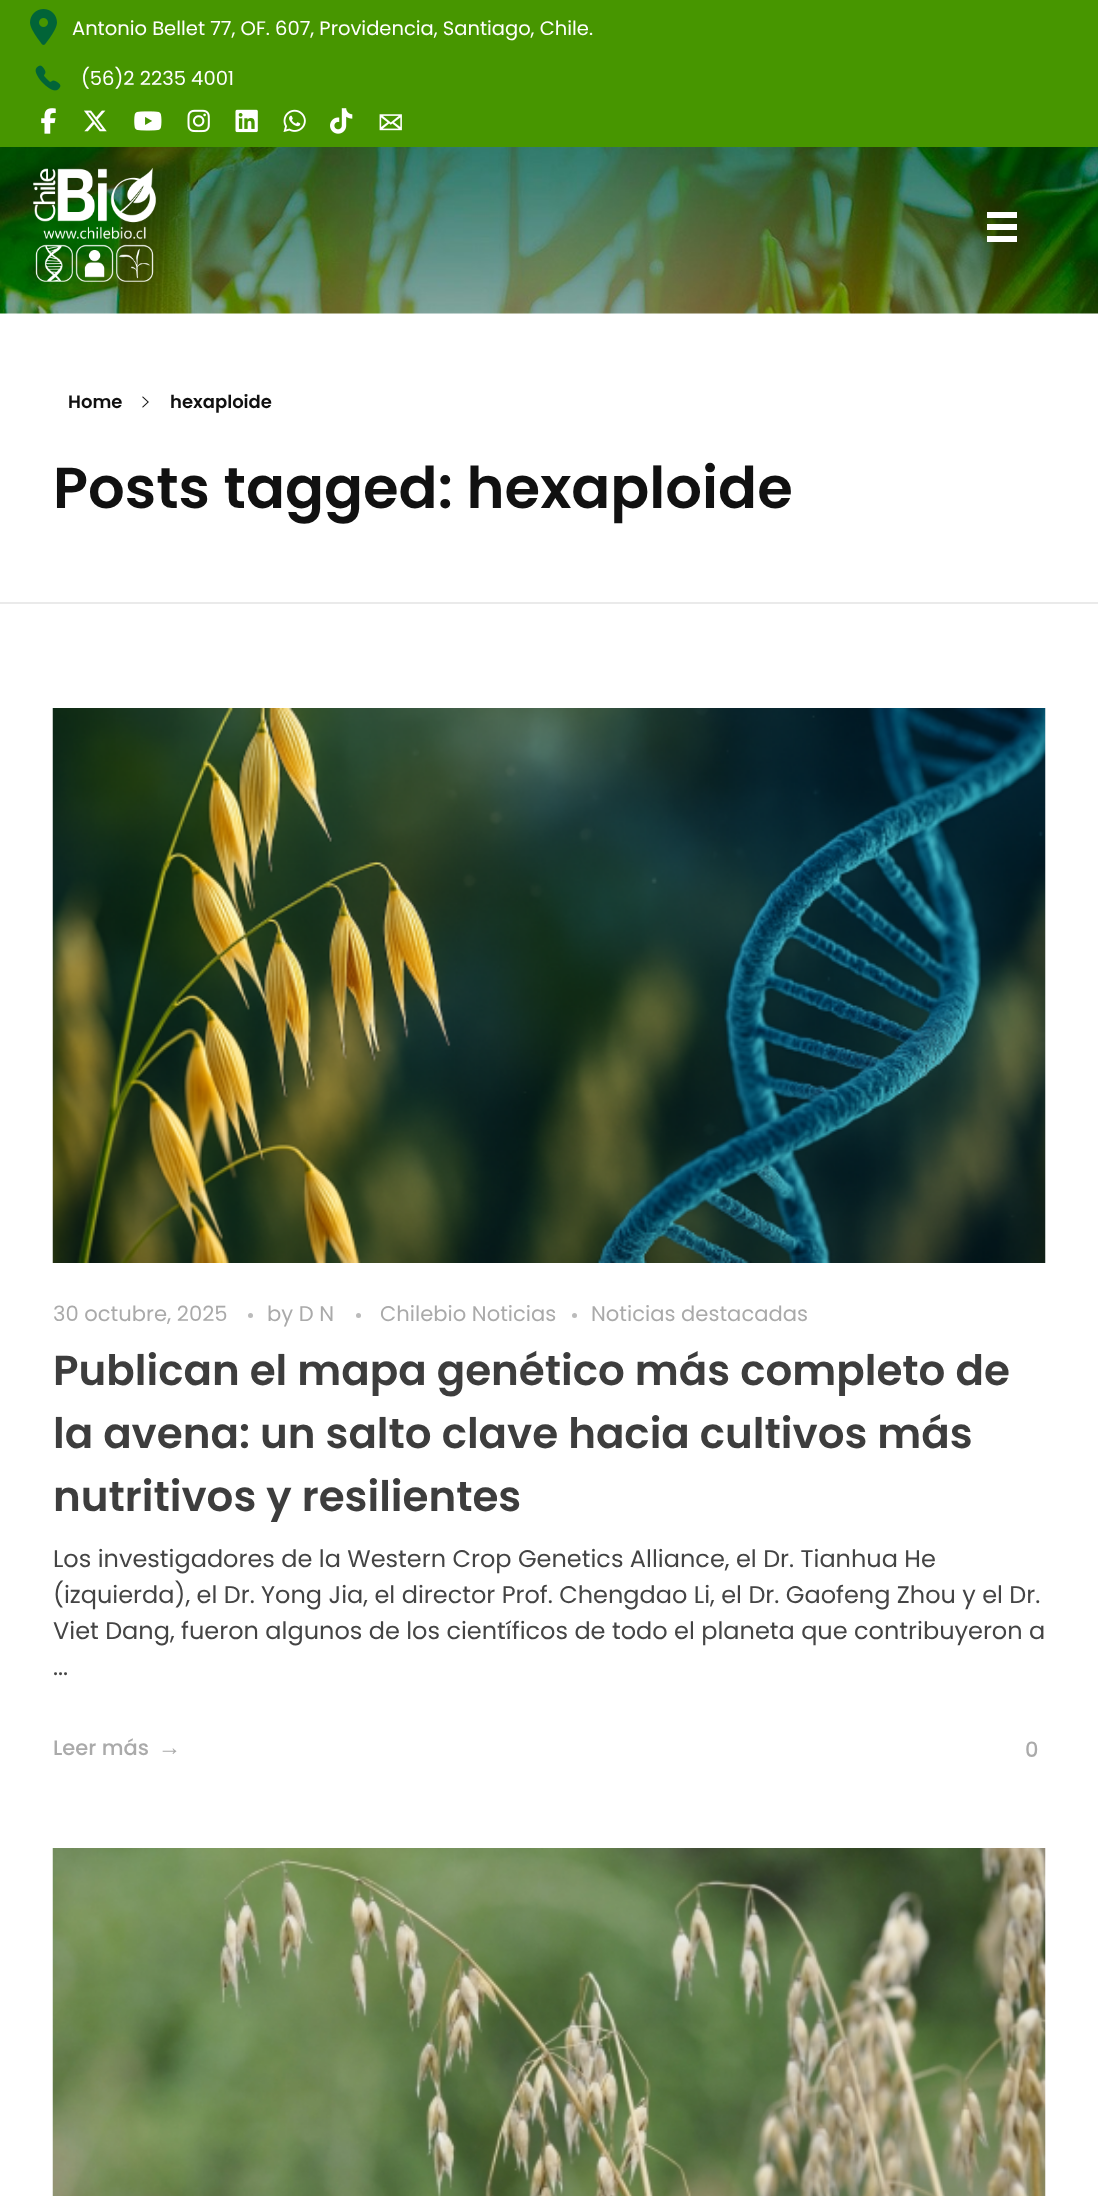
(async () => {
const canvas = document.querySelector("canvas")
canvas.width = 1098
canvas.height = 2196
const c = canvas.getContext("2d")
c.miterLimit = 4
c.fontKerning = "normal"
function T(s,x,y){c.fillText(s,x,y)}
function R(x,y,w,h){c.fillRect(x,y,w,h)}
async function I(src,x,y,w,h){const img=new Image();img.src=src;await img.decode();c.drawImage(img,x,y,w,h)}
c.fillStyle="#fff"
R(0,0,1098,2196)
c.fillStyle="#479600"
R(0,0,1098,147)
await I("1.png",30,9,27,36)
c.font="19.5px Poppins"
c.fillStyle="#fff"
T("Antonio Bellet 77, OF. 607, Providencia, Santiago, Chile.",72,35)
await I("2.png",35,65,26,26)
T("(56)2 2235 4001",81,85)
await I("3.png",41,108,15,26)
await I("4.png",84,110,23,22)
await I("5.png",134,111,28,20)
await I("6.png",187,109,23,24)
await I("7.png",235,109,23,24)
await I("8.png",283,109,23,23)
await I("9.png",330,108,23,26)
await I("10.png",379,114,23,17)
await I("11.png",0,147,1098,167)
await I("12.png",33,168,123,114)
R(987,212,30,6)
R(987,224,30,6)
R(987,236,30,6)
c.fillStyle="#eaeaea"
R(0,602,1098,2)
c.font="600 18px Poppins"
c.fillStyle="#111"
T("Home",68,408)
await I("13.png",142,396,7,12)
T("hexaploide",170,408)
c.font="600 57.6px Poppins"
T("Posts tagged: hexaploide",53,508)
await I("14.png",52,708,994,555)
c.font="21.1px Poppins"
c.fillStyle="#aaa"
T("30 octubre, 2025",53,1321)
c.fillStyle="#bbb"
c.beginPath()
c.arc(250.5,1315.5,2.5,0,7)
c.fill()
c.fillStyle="#aaa"
T("by D N",267,1321)
c.fillStyle="#bbb"
c.beginPath()
c.arc(358.5,1315.5,2.5,0,7)
c.fill()
c.fillStyle="#aaa"
T("Chilebio Noticias",380,1321)
c.fillStyle="#bbb"
c.beginPath()
c.arc(574.5,1315.5,2.5,0,7)
c.fill()
c.fillStyle="#aaa"
T("Noticias destacadas",591,1321)
c.font="600 42px Poppins"
c.fillStyle="#3d3d3d"
T("Publican el mapa genético más completo de",53,1385)
T("la avena: un salto clave hacia cultivos más",53,1448)
T("nutritivos y resilientes",53,1511)
c.font="24px Poppins"
c.fillStyle="#444"
T("Los investigadores de la Western Crop Genetics Alliance, el Dr. Tianhua He",53,1567)
T("(izquierda), el Dr. Yong Jia, el director Prof. Chengdao Li, el Dr. Gaofeng Zhou y el Dr.",53,1603)
T("Viet Dang, fueron algunos de los científicos de todo el planeta que contribuyeron a",53,1639)
T("...",53,1675)
c.font="500 21px Poppins"
c.fillStyle="#aaa"
T("Leer más",53,1755)
c.font="23px Liberation Sans"
T("→",158,1755)
c.font="500 21px Poppins"
T("0",1025,1757)
await I("15.png",52,1848,994,348)
})()
